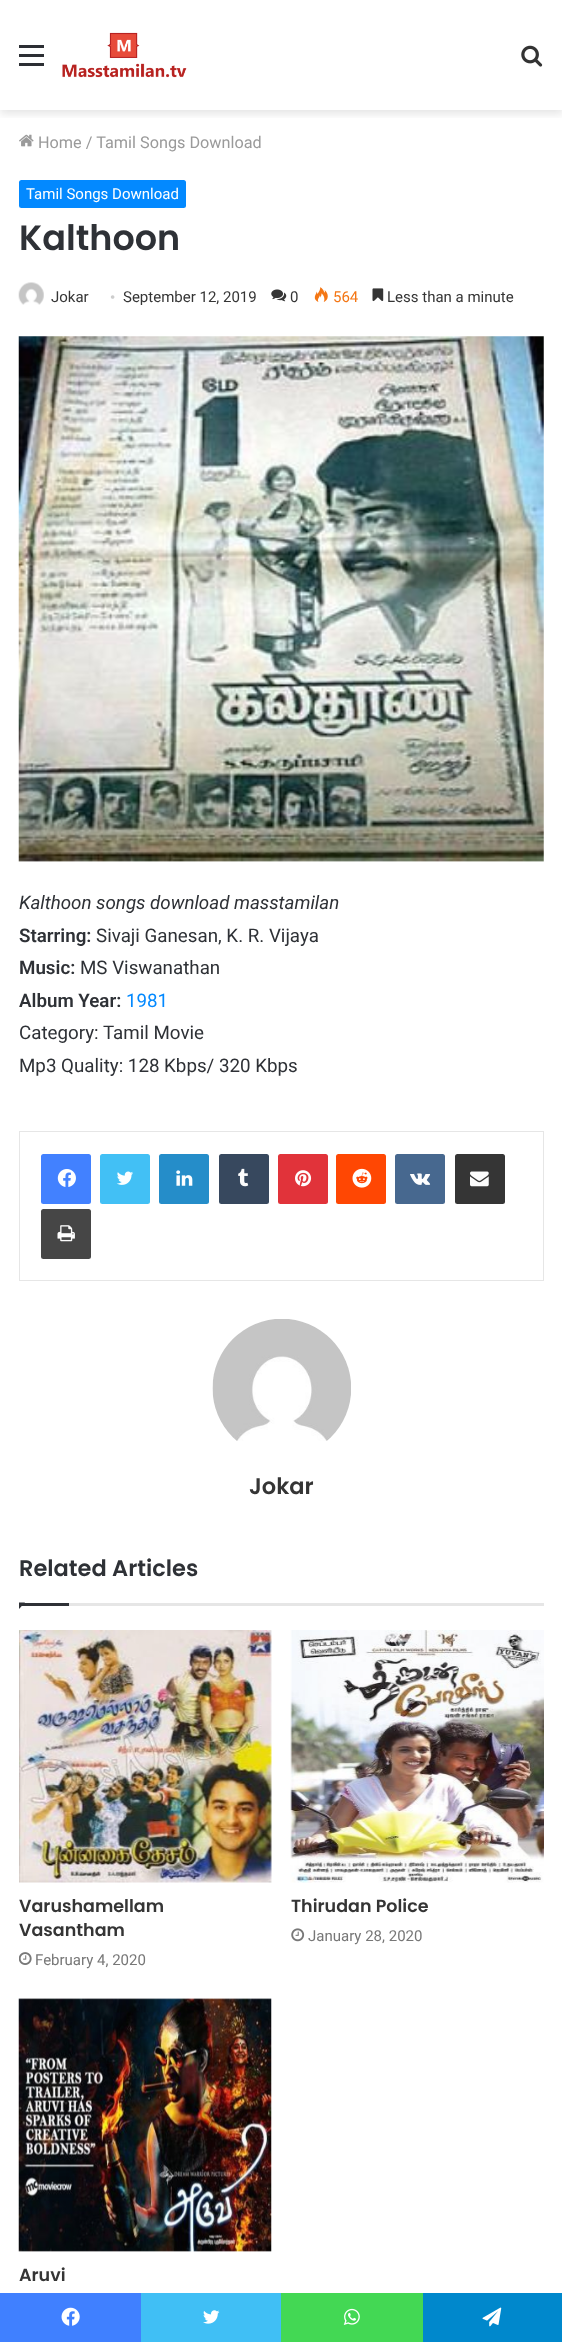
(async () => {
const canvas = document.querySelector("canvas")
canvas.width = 562
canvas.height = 2342
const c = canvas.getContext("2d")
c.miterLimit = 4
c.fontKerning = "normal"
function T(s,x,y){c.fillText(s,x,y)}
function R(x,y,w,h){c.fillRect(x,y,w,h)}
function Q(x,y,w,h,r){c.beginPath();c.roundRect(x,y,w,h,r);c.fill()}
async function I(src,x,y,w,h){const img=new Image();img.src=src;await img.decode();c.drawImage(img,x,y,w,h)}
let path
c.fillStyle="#fff"
R(0,0,562,2342)
c.save()
c.beginPath()
c.rect(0,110,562,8)
c.clip()
c.fillStyle="#0000001a"
c.filter="blur(4.5px)"
c.beginPath()
c.rect(0,4,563,110)
c.fill()
c.filter="none"
c.restore()
c.fillStyle="#2c2f34"
R(19,54,25,3)
R(19,45,25,3)
R(19,63,25,3)
await I("1.png",62,32,125,46)
await I("2.png",521,45,22,22)
await I("3.png",19,134,15,13)
c.font="16.25px Roboto"
c.fillStyle="#9a9a9a"
T("Home / Tamil Songs Download",38,148)
c.fillStyle="#0389ff"
Q(19,180,167,28,2.5)
c.font="15px Roboto"
c.fillStyle="#fff"
T("Tamil Songs Download",26,199)
c.font="600 35px Poppins"
c.fillStyle="#2e3136"
T("Kalthoon",19,250)
await I("4.png",18,282,26,23)
c.font="15px Roboto"
c.fillStyle="#353535"
T("Jokar",51,302)
c.font="15px Liberation Serif"
c.fillStyle="#cdcdcd"
T("•",110,302)
c.font="15px Roboto"
c.fillStyle="#353535"
T("September 12, 2019",123,302)
await I("5.png",271,289,16,13)
T("0",290,302)
await I("6.png",314,287,14,15)
c.fillStyle="#f47614"
T("564",333,302)
await I("7.png",372,288,12,14)
c.fillStyle="#353535"
T("Less than a minute",387,302)
await I("8.png",18,336,526,526)
c.font="italic 18.75px Roboto"
c.fillStyle="#2e3136"
T("Kalthoon songs download masstamilan",19,909)
c.font="600 18.75px Roboto"
T("Starring:",19,942)
c.font="18.75px Roboto"
T("Sivaji Ganesan, K. R. Vijaya",96,942)
c.font="600 18.75px Roboto"
T("Music:",19,974)
c.font="18.75px Roboto"
T("MS Viswanathan",80,974)
c.font="600 18.75px Roboto"
T("Album Year:",19,1007)
c.font="18.75px Roboto"
c.fillStyle="#0389ff"
T("1981",126,1007)
c.fillStyle="#2e3136"
T("Category: Tamil Movie",19,1039)
T("Mp3 Quality: 128 Kbps/ 320 Kbps",19,1072)
c.strokeStyle="#e6e6e6"
c.strokeRect(19.5,1131.5,524,149)
c.fillStyle="#4281ff"
Q(41,1154,50,50,2.5)
await I("9.png",57,1169,19,18)
c.fillStyle="#42c0f5"
Q(100,1154,50,50,2.5)
await I("10.png",117,1171,16,14)
c.fillStyle="#258dc9"
Q(159,1154,50,50,2.5)
await I("11.png",176,1170,17,16)
c.fillStyle="#37485e"
Q(219,1154,50,50,2.5)
await I("12.png",238,1168,11,19)
c.fillStyle="#e1333a"
Q(278,1154,50,50,2.5)
await I("13.png",295,1170,17,17)
c.fillStyle="#ff4703"
Q(336,1154,50,50,2.5)
await I("14.png",352,1168,20,20)
c.fillStyle="#47688f"
Q(395,1154,50,50,2.5)
await I("15.png",410,1173,21,12)
c.fillStyle="#353535"
Q(455,1154,50,50,2.5)
await I("16.png",470,1171,19,16)
c.fillStyle="#464646"
Q(41,1209,50,50,2.5)
await I("17.png",57,1225,18,17)
await I("18.png",212,1319,139,122)
c.font="600 22.5px Poppins"
c.fillStyle="#353535"
T("Jokar",249,1494)
c.fillStyle="#e6e6e6"
R(69,1603,475,3)
c.fillStyle="#2e3136"
T("Related Articles",19,1576)
path = new Path2D("M19 1602.5h6l-6 6.5z")
c.fill(path)
R(19,1603,50,3)
await I("19.png",19,1630,253,253)
c.font="600 17.5px Poppins"
c.fillStyle="#353535"
T("Varushamellam",19,1912)
T("Vasantham",19,1936)
await I("20.png",19,1952,13,13)
c.font="15px Roboto"
c.fillStyle="#777"
T("February 4, 2020",35,1965)
await I("21.png",290,1630,254,253)
c.font="600 17.5px Poppins"
c.fillStyle="#353535"
T("Thirudan Police",291,1912)
await I("22.png",291,1928,14,14)
c.font="15px Roboto"
c.fillStyle="#777"
T("January 28, 2020",308,1941)
await I("23.png",18,1998,254,254)
c.font="600 17.5px Poppins"
c.fillStyle="#353535"
T("Aruvi",19,2281)
c.fillStyle="#4080ff"
R(0,2293,141,49)
await I("24.png",61,2307,19,19)
c.fillStyle="#40bff5"
R(141,2293,140,49)
await I("25.png",203,2310,17,14)
c.fillStyle="#43d854"
R(281,2293,142,49)
await I("26.png",343,2308,17,17)
c.fillStyle="#08c"
R(423,2293,139,49)
await I("27.png",482,2307,20,20)
})()
